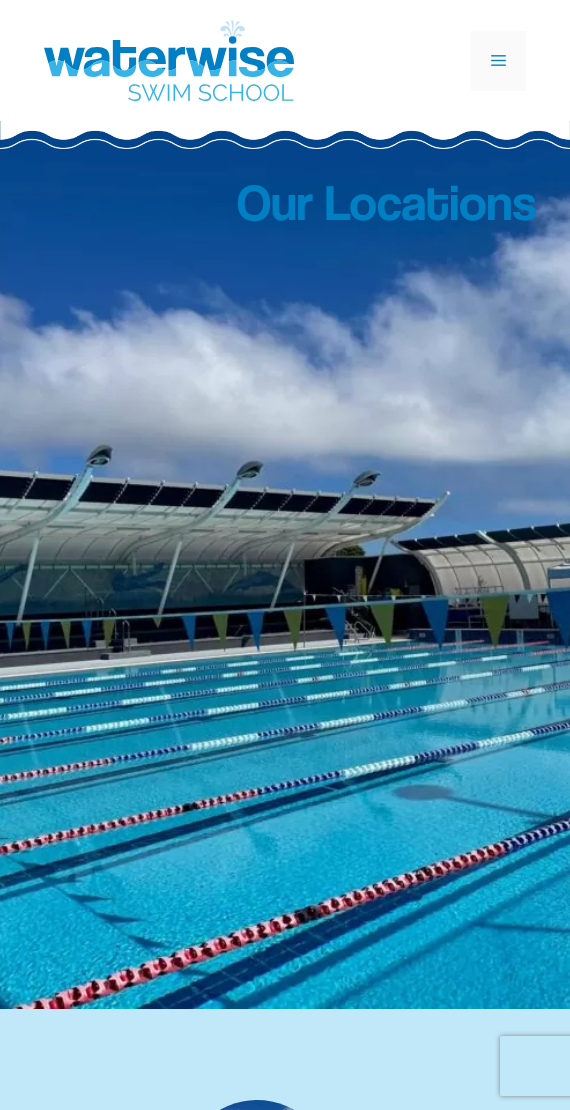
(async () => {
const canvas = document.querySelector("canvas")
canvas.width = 570
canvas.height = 1110
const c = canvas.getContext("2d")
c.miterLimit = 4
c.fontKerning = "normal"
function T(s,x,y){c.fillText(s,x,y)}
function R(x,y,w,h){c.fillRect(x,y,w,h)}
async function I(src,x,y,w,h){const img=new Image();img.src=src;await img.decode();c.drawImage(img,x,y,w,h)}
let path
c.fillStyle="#fff"
R(0,0,570,1110)
await I("1.png",44,20,250,81)
c.fillStyle="#fafafa"
R(471,31,55,60)
await I("2.png",491,55,15,11)
await I("3.png",0,121,570,888)
await I("4.png",0,121,570,28)
c.font="51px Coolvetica"
c.fillStyle="#007fc3"
T("Our Locations",237,220)
c.fillStyle="#c1e8f8"
R(0,1009,570,101)
await I("5.png",220,1100,74,10)
c.save()
path = new Path2D("M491 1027h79v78h-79zm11 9h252c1 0 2 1 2 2v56c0 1-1 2-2 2h-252c-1 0-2-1-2-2v-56c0-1 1-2 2-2z")
c.clip(path,"evenodd")
c.fillStyle="#808080"
c.filter="blur(2.5px)"
c.beginPath()
c.roundRect(500,1036,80,60,2)
c.fill()
c.filter="none"
c.restore()
})()
